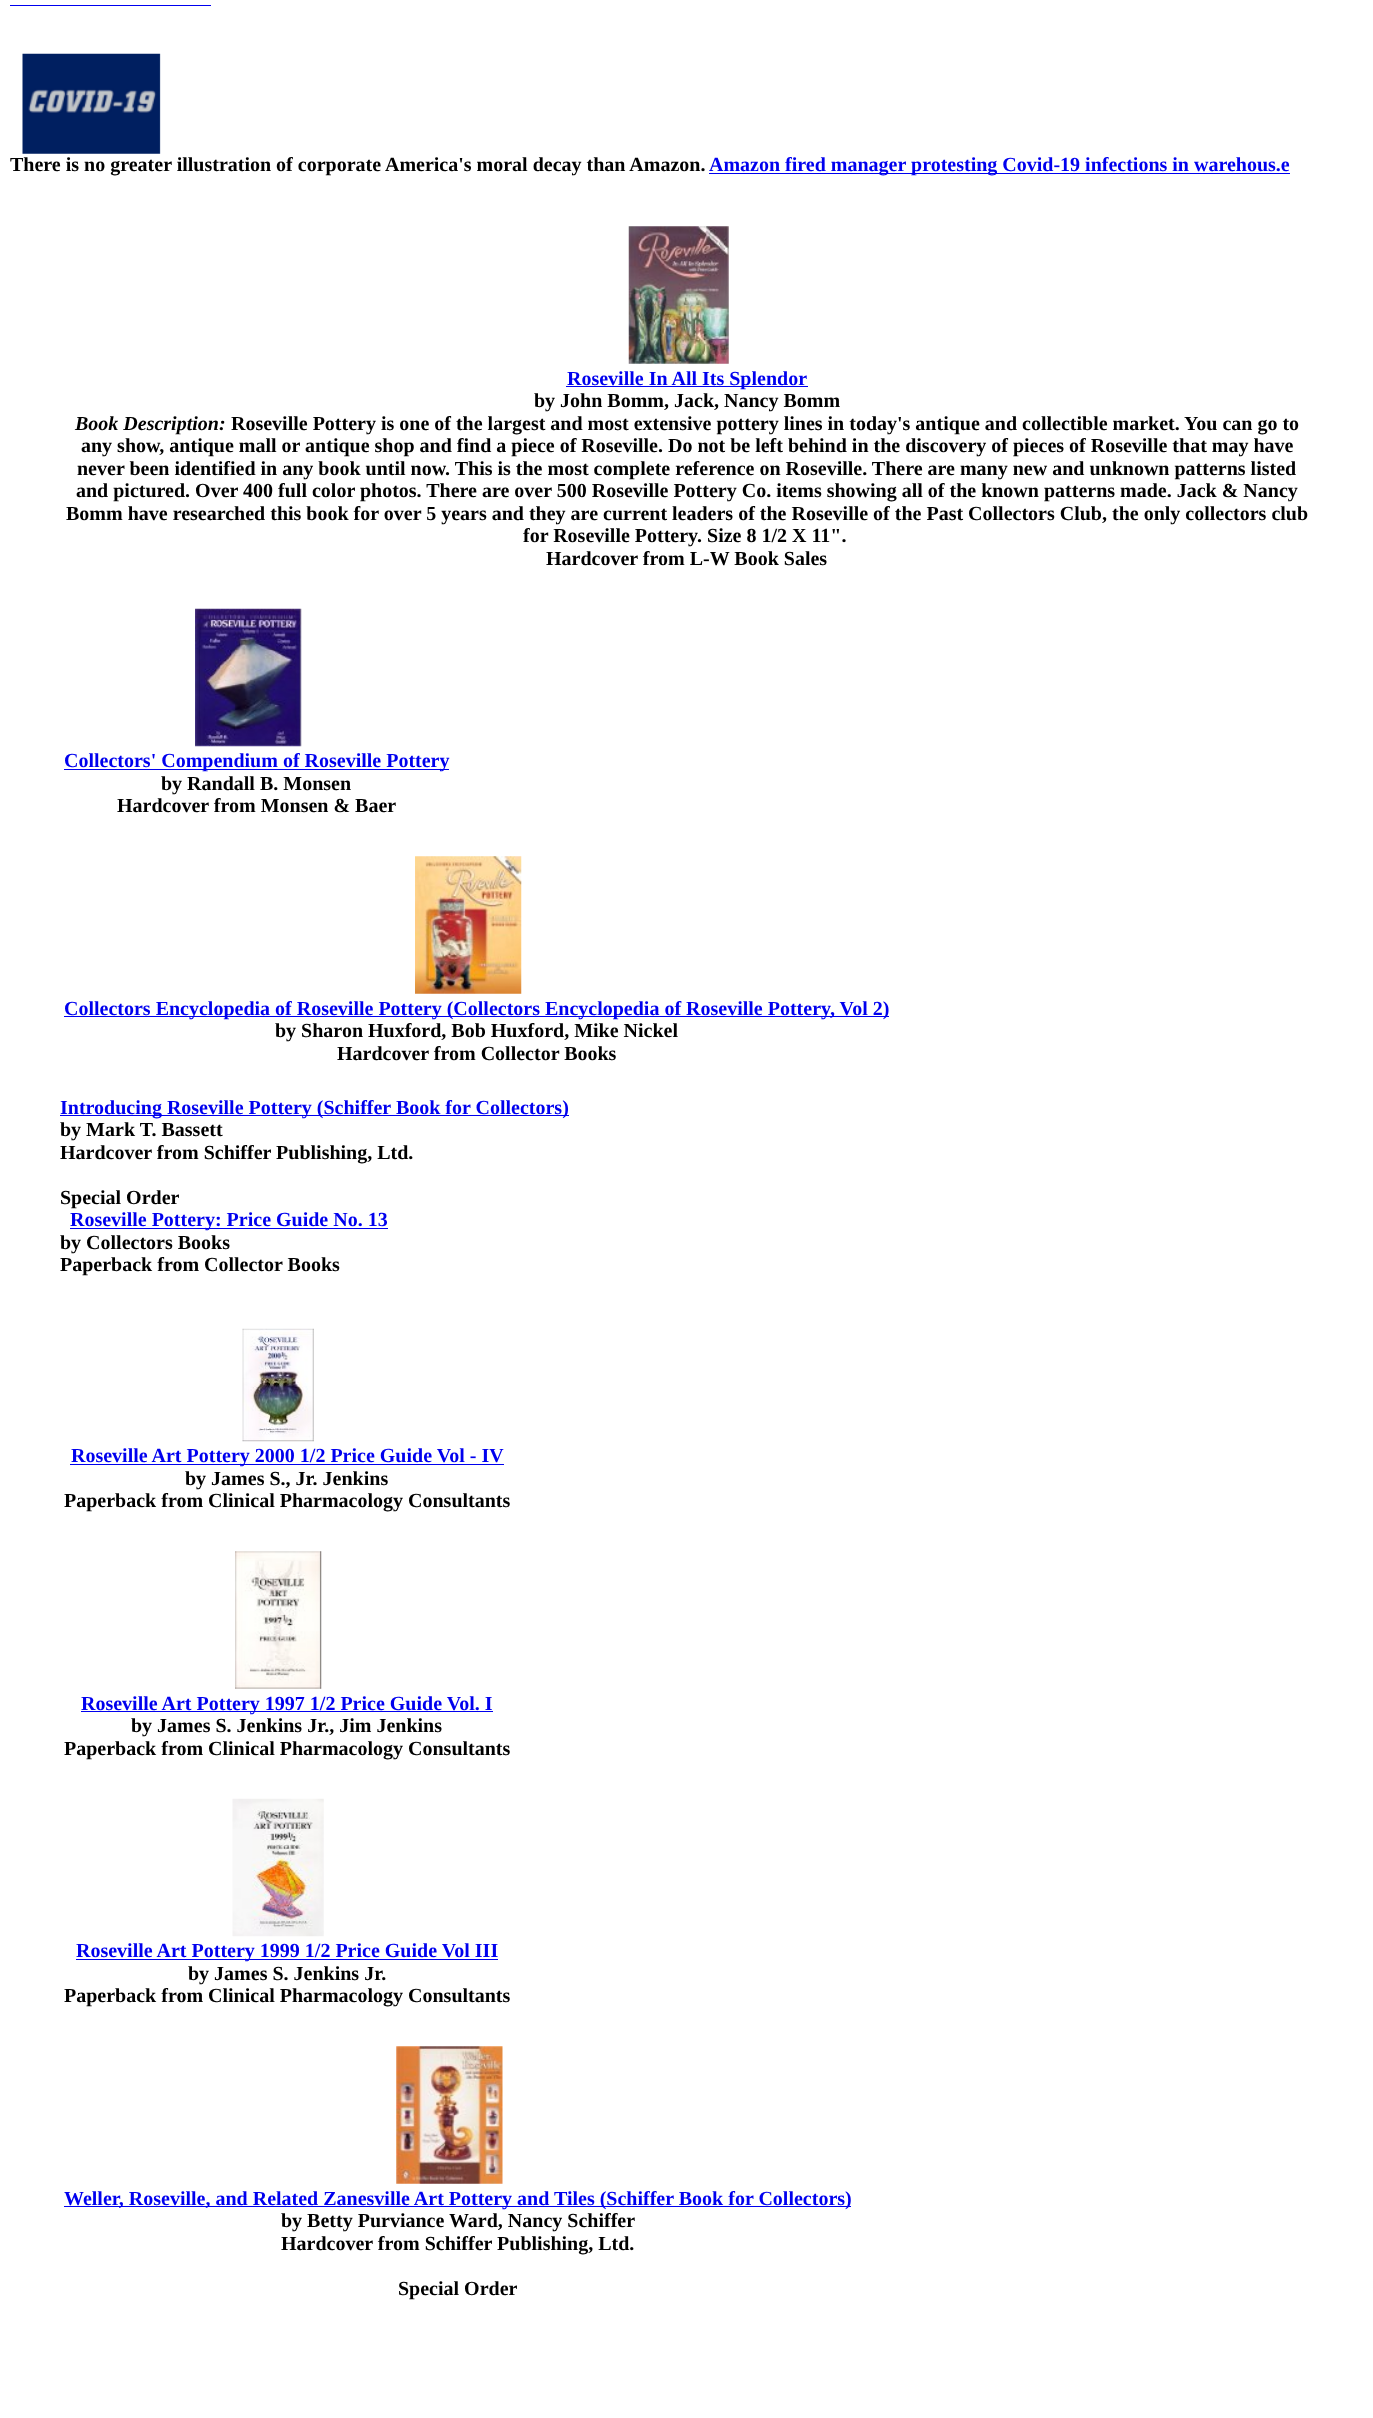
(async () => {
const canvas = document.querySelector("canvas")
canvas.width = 1373
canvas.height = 2418
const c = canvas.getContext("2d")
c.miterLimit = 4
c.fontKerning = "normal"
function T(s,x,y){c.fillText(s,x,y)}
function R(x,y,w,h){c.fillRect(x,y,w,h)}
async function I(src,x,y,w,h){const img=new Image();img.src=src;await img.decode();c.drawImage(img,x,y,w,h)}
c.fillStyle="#fff"
R(0,0,1373,2418)
c.fillStyle="#00e"
R(10,5,201,1)
await I("1.png",22,53,139,101)
c.font="bold 20px Liberation Serif"
c.fillStyle="#000"
T("There is no greater illustration of corporate America's moral decay than Amazon.",10,171)
c.fillStyle="#00e"
R(709,173,581,1)
T("Amazon fired manager protesting Covid-19 infections in warehous.e",709,171)
await I("2.png",628,226,101,138)
R(566,386,242,1)
T("Roseville In All Its Splendor",567,385)
c.fillStyle="#000"
T("by John Bomm, Jack, Nancy Bomm",534,407)
c.font="italic bold 20px Liberation Serif"
T("Book Description:",75,430)
c.font="bold 20px Liberation Serif"
T("Roseville Pottery is one of the largest and most extensive pottery lines in today's antique and collectible market. You can go to",231,430)
T("any show, antique mall or antique shop and find a piece of Roseville. Do not be left behind in the discovery of pieces of Roseville that may have",81,452)
T("never been identified in any book until now. This is the most complete reference on Roseville. There are many new and unknown patterns listed",77,475)
T("and pictured. Over 400 full color photos. There are over 500 Roseville Pottery Co. items showing all of the known patterns made. Jack & Nancy",76,497)
T("Bomm have researched this book for over 5 years and they are current leaders of the Roseville of the Past Collectors Club, the only collectors club",66,520)
T("for Roseville Pottery. Size 8 1/2 X 11\".",523,542)
T("Hardcover from L-W Book Sales",546,565)
await I("3.png",195,608,107,139)
c.fillStyle="#00e"
R(64,769,385,1)
T("Collectors' Compendium of Roseville Pottery",64,767)
c.fillStyle="#000"
T("by Randall B. Monsen",161,790)
T("Hardcover from Monsen & Baer",117,812)
await I("4.png",415,856,107,138)
c.fillStyle="#00e"
R(64,1016,825,1)
T("Collectors Encyclopedia of Roseville Pottery (Collectors Encyclopedia of Roseville Pottery, Vol 2)",64,1015)
c.fillStyle="#000"
T("by Sharon Huxford, Bob Huxford, Mike Nickel",275,1037)
T("Hardcover from Collector Books",337,1060)
c.fillStyle="#00e"
R(60,1115,509,1)
T("Introducing Roseville Pottery (Schiffer Book for Collectors)",60,1114)
c.fillStyle="#000"
T("by Mark T. Bassett",60,1136)
T("Hardcover from Schiffer Publishing, Ltd.",60,1159)
T("Special Order",60,1204)
c.fillStyle="#00e"
R(70,1228,318,1)
T("Roseville Pottery: Price Guide No. 13",70,1226)
c.fillStyle="#000"
T("by Collectors Books",60,1249)
T("Paperback from Collector Books",60,1271)
await I("5.png",242,1328,72,114)
c.fillStyle="#00e"
R(70,1464,434,1)
T("Roseville Art Pottery 2000 1/2 Price Guide Vol - IV",71,1462)
c.fillStyle="#000"
T("by James S., Jr. Jenkins",185,1485)
T("Paperback from Clinical Pharmacology Consultants",64,1507)
await I("6.png",235,1551,87,138)
c.fillStyle="#00e"
R(81,1711,412,1)
T("Roseville Art Pottery 1997 1/2 Price Guide Vol. I",81,1710)
c.fillStyle="#000"
T("by James S. Jenkins Jr., Jim Jenkins",131,1732)
T("Paperback from Clinical Pharmacology Consultants",64,1755)
await I("7.png",232,1798,92,139)
c.fillStyle="#00e"
R(76,1959,422,1)
T("Roseville Art Pottery 1999 1/2 Price Guide Vol III",76,1957)
c.fillStyle="#000"
T("by James S. Jenkins Jr.",188,1980)
T("Paperback from Clinical Pharmacology Consultants",64,2002)
await I("8.png",396,2046,107,138)
c.fillStyle="#00e"
R(64,2206,787,1)
T("Weller, Roseville, and Related Zanesville Art Pottery and Tiles (Schiffer Book for Collectors)",64,2205)
c.fillStyle="#000"
T("by Betty Purviance Ward, Nancy Schiffer",281,2227)
T("Hardcover from Schiffer Publishing, Ltd.",281,2250)
T("Special Order",398,2295)
})()
